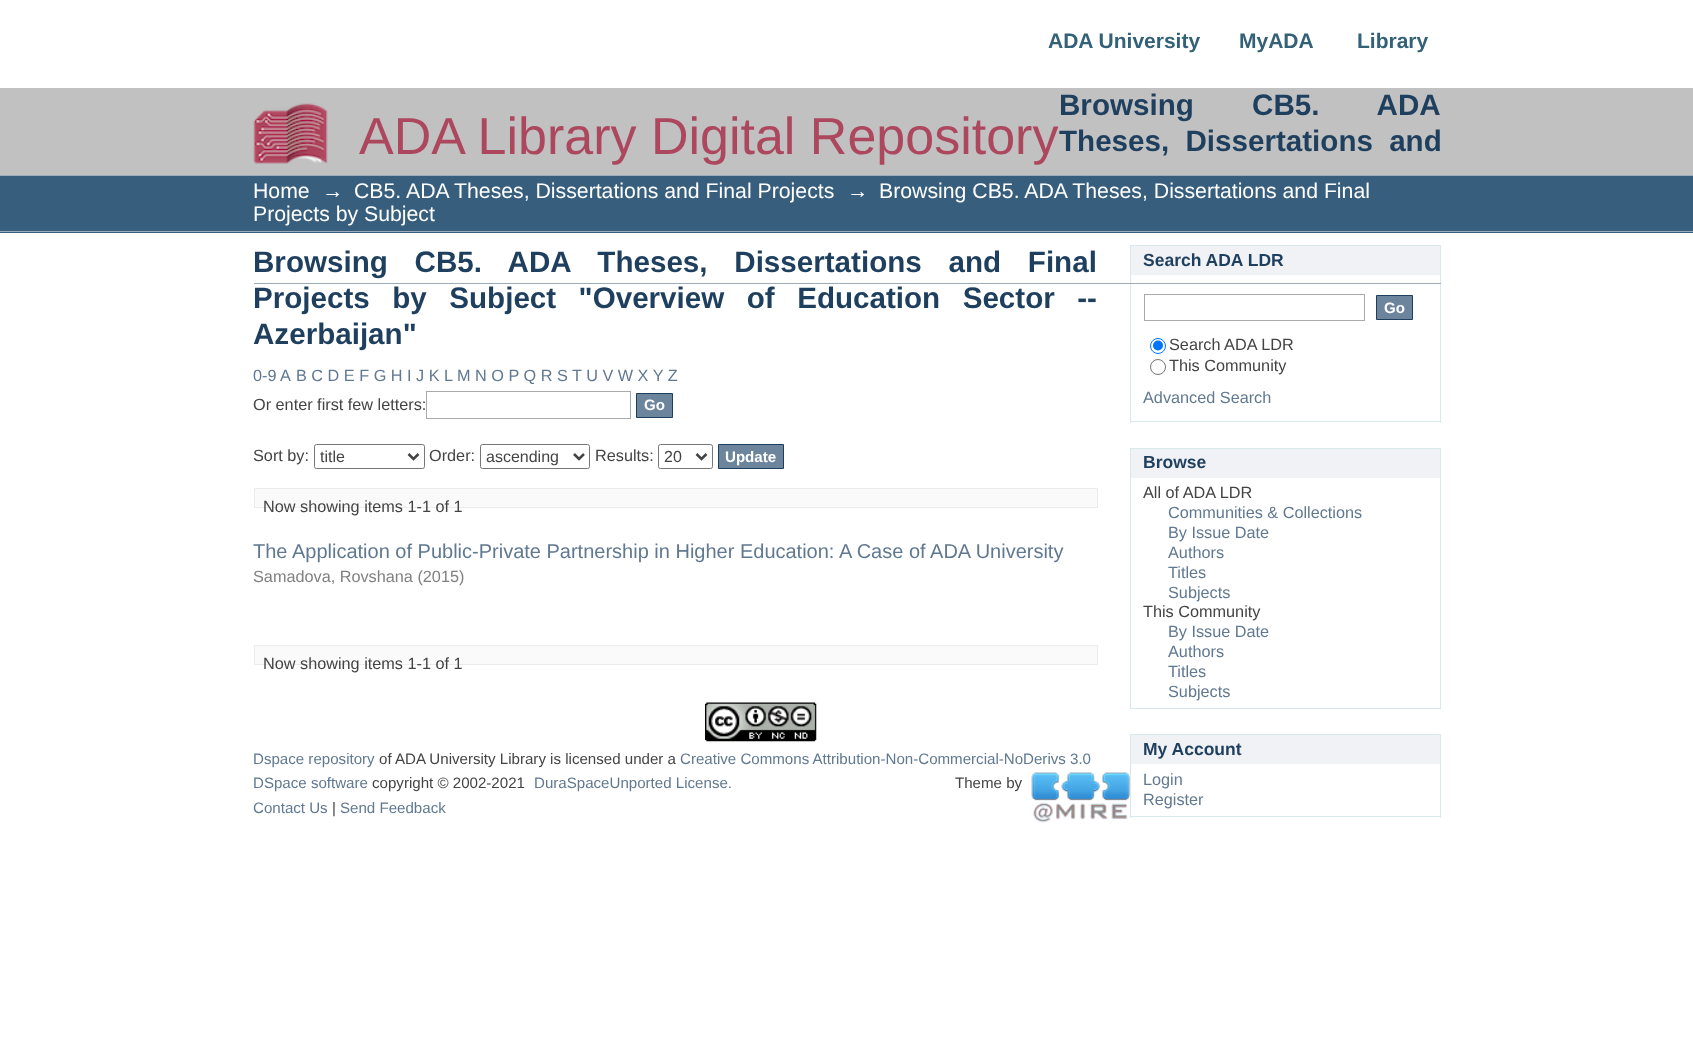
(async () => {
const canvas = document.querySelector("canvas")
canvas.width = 1693
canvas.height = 1056
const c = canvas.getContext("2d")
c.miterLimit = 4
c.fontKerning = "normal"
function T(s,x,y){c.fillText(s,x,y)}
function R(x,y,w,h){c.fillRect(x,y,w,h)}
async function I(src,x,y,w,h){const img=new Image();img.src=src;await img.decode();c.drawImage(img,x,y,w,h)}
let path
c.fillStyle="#fff"
R(0,0,1693,1056)
c.font="bold 21px Liberation Sans"
c.fillStyle="#336178"
T("ADA University",1048,48)
T("MyADA",1239,48)
T("Library",1357,48)
c.fillStyle="#c1c1c1"
R(0,88,1693,87)
await I("1.png",253,103,75,61)
c.font="52px Liberation Sans"
c.fillStyle="#ac475e"
T("ADA Library Digital Repository",359,154)
c.wordSpacing="50px"
c.font="bold 29.6px Liberation Sans"
c.fillStyle="#1f3f5e"
T("Browsing CB5. ADA",1059,115)
c.wordSpacing="8px"
T("Theses, Dissertations and",1059,151)
c.fillStyle="#375e7d"
R(0,176,1693,57)
c.fillStyle="#9cacba"
R(0,175,1693,1)
R(0,231,1693,1)
c.wordSpacing="0px"
c.font="21.25px Liberation Sans"
c.fillStyle="#fff"
T("Home",253,198)
T("→",322,198)
T("CB5. ADA Theses, Dissertations and Final Projects",354,198)
T("→",847,198)
T("Browsing CB5. ADA Theses, Dissertations and Final",879,198)
T("Projects by Subject",253,221)
c.wordSpacing="18.5px"
c.font="bold 29.6px Liberation Sans"
c.fillStyle="#1f3f5e"
T("Browsing CB5. ADA Theses, Dissertations and Final",253,272)
c.wordSpacing="14.25px"
T("Projects by Subject \"Overview of Education Sector --",253,308)
c.wordSpacing="0px"
T("Azerbaijan\"",253,344)
c.font="16.25px Liberation Sans"
c.fillStyle="#607890"
T("0-9 A",253,381)
T("B C D E F G H I J K L",296,381)
T("M N O P Q R S T U V W X Y Z",457,381)
c.fillStyle="#444"
T("Or enter first few letters:",253,410)
c.strokeStyle="#aaa"
c.strokeRect(426.5,391.5,204,27)
c.fillStyle="#6d859c"
c.beginPath()
c.rect(636.5,393.5,36,24)
c.fill()
c.strokeStyle="#1f3f5e"
c.stroke()
c.font="bold 15.1px Liberation Sans"
c.fillStyle="#fff"
T("Go",644,410)
c.font="16.25px Liberation Sans"
c.fillStyle="#444"
T("Sort by:",253,461)
c.beginPath()
c.roundRect(314.5,444.5,110,24,2)
c.strokeStyle="#767676"
c.stroke()
path = new Path2D("M408.5 454l5 5l5-5")
c.strokeStyle="#444"
c.lineWidth=2.5
c.stroke(path)
c.font="16px Liberation Sans"
T("title",320,462)
c.font="16.25px Liberation Sans"
T("Order:",429,461)
c.beginPath()
c.roundRect(480.5,444.5,109,24,2)
c.strokeStyle="#767676"
c.lineWidth=1
c.stroke()
path = new Path2D("M574 454l5 5l5-5")
c.strokeStyle="#444"
c.lineWidth=2.5
c.stroke(path)
c.font="16px Liberation Sans"
T("ascending",486,462)
c.font="16.25px Liberation Sans"
T("Results:",595,461)
c.beginPath()
c.roundRect(658.5,444.5,54,24,2)
c.strokeStyle="#767676"
c.lineWidth=1
c.stroke()
path = new Path2D("M696.5 454l5 5l5-5")
c.strokeStyle="#444"
c.lineWidth=2.5
c.stroke(path)
c.font="16px Liberation Sans"
T("20",664,462)
c.fillStyle="#6d859c"
c.beginPath()
c.rect(718.5,444.5,65,24)
c.fill()
c.strokeStyle="#1f3f5e"
c.lineWidth=1
c.stroke()
c.font="bold 15.1px Liberation Sans"
c.fillStyle="#fff"
T("Update",725,462)
c.fillStyle="#fafafa"
c.beginPath()
c.rect(254.5,488.5,843,19)
c.fill()
c.strokeStyle="#ebebeb"
c.stroke()
c.font="16.25px Liberation Sans"
c.fillStyle="#444"
T("Now showing items 1-1 of 1",263,512)
c.font="20px Liberation Sans"
c.fillStyle="#607890"
T("The Application of Public-Private Partnership in Higher Education: A Case of ADA University",253,558)
c.font="16.25px Liberation Sans"
c.fillStyle="#808080"
T("Samadova, Rovshana (2015)",253,582)
c.fillStyle="#fafafa"
c.beginPath()
c.rect(254.5,645.5,843,19)
c.fill()
c.stroke()
c.fillStyle="#444"
T("Now showing items 1-1 of 1",263,669)
c.fillStyle="#f0f2f5"
R(1131,246,309,29)
c.fillStyle="#d8e8eb"
R(1130,245,311,1)
R(1440,245,1,178)
R(1130,245,1,30)
c.font="bold 17.5px Liberation Sans"
c.fillStyle="#1f3f5e"
T("Search ADA LDR",1143,266)
c.fillStyle="#d8e8eb"
R(1130,421,311,1)
R(1130,275,1,148)
c.strokeStyle="#aaa"
c.strokeRect(1144.5,294.5,220,26)
c.fillStyle="#6d859c"
c.beginPath()
c.rect(1376.5,295.5,36,24)
c.fill()
c.strokeStyle="#1f3f5e"
c.stroke()
c.font="bold 15.1px Liberation Sans"
c.fillStyle="#fff"
T("Go",1384,313)
c.beginPath()
c.arc(1158,346,7.5,0,7)
c.strokeStyle="#0075ff"
c.stroke()
c.fillStyle="#0075ff"
c.beginPath()
c.arc(1158,345.5,5,0,7)
c.fill()
c.font="16.25px Liberation Sans"
c.fillStyle="#444"
T("Search ADA LDR",1169,350)
c.beginPath()
c.arc(1158,367,7.5,0,7)
c.strokeStyle="#767676"
c.stroke()
T("This Community",1169,371)
c.fillStyle="#607890"
T("Advanced Search",1143,403)
c.fillStyle="#f0f2f5"
R(1131,449,309,29)
c.fillStyle="#d8e8eb"
R(1130,448,311,1)
R(1440,448,1,261)
R(1130,448,1,30)
c.font="bold 17.5px Liberation Sans"
c.fillStyle="#1f3f5e"
T("Browse",1143,468)
c.fillStyle="#d8e8eb"
R(1130,708,311,1)
R(1130,478,1,231)
c.font="16.25px Liberation Sans"
c.fillStyle="#444"
T("All of ADA LDR",1143,498)
c.fillStyle="#607890"
T("Communities & Collections",1168,518)
T("By Issue Date",1168,538)
T("Authors",1168,558)
T("Titles",1168,578)
T("Subjects",1168,598)
c.fillStyle="#444"
T("This Community",1143,617)
c.fillStyle="#607890"
T("By Issue Date",1168,637)
T("Authors",1168,657)
T("Titles",1168,677)
T("Subjects",1168,697)
c.fillStyle="#f0f2f5"
R(1131,735,309,29)
c.fillStyle="#d8e8eb"
R(1130,734,311,1)
R(1440,734,1,84)
R(1130,734,1,30)
c.font="bold 17.5px Liberation Sans"
c.fillStyle="#1f3f5e"
T("My Account",1143,755)
c.fillStyle="#d8e8eb"
R(1130,816,311,1)
R(1130,764,1,54)
c.font="16.25px Liberation Sans"
c.fillStyle="#607890"
T("Login",1143,785)
T("Register",1143,805)
c.fillStyle="#9cacba"
R(254,283,1187,1)
await I("2.png",705,702,112,40)
c.font="15.1px Liberation Sans"
c.fillStyle="#607890"
T("Dspace repository",253,764)
c.fillStyle="#444"
T("of ADA University Library is licensed under a",379,764)
c.fillStyle="#607890"
T("Creative Commons Attribution-Non-Commercial-NoDerivs 3.0",680,764)
T("DSpace software",253,788)
c.fillStyle="#444"
T("copyright © 2002-2021",372,788)
c.fillStyle="#607890"
T("DuraSpaceUnported License.",534,788)
c.fillStyle="#444"
T("Theme by",955,788)
await I("3.png",1031,772,99,51)
c.fillStyle="#607890"
T("Contact Us",253,813)
c.fillStyle="#444"
T("|",332,813)
c.fillStyle="#607890"
T("Send Feedback",340,813)
})()
